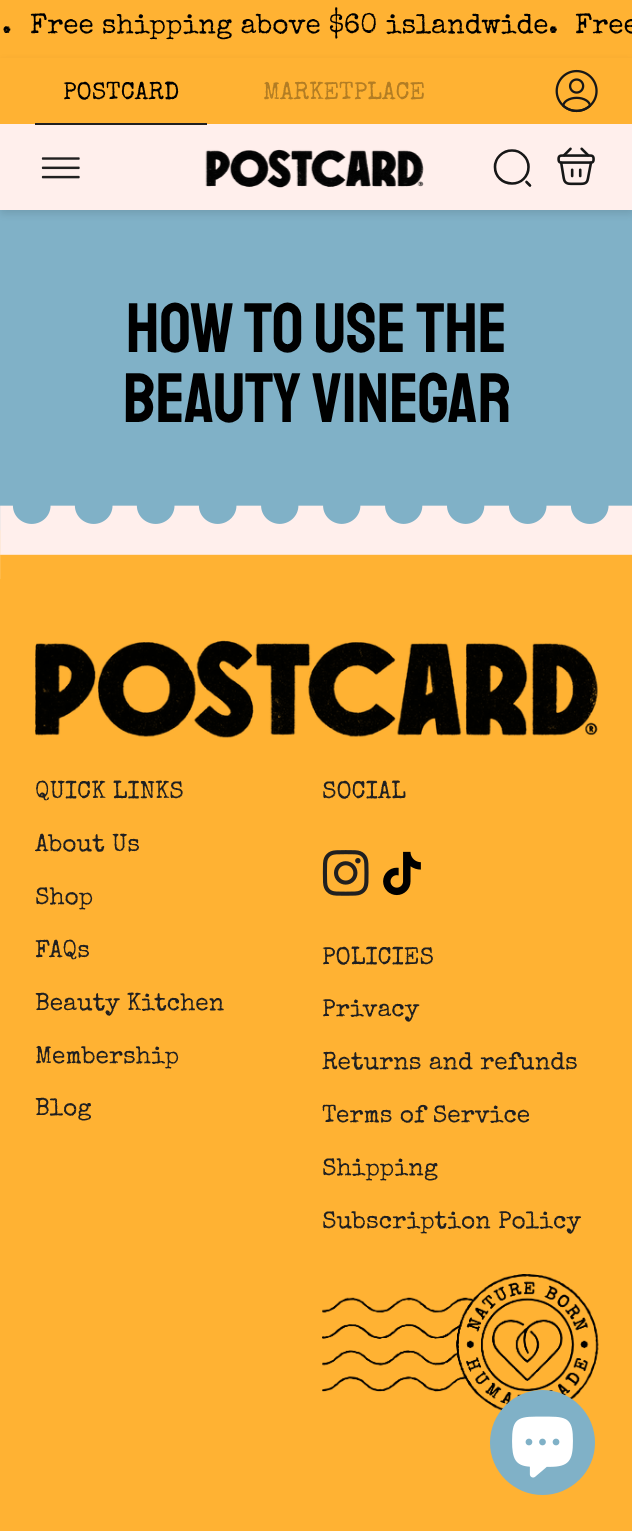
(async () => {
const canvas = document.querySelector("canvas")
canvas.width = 632
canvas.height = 1531
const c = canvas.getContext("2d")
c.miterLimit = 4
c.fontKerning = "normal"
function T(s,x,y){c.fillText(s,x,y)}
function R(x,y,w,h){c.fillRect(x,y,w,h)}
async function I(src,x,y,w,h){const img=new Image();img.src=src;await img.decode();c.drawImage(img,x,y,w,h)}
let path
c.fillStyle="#fff"
R(0,0,632,1531)
c.fillStyle="#ffb233"
R(0,0,632,58)
c.font="28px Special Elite"
c.fillStyle="#000"
T(".",2,33)
T("Free shipping above $60 islandwide.",30,33)
T("Free",575,33)
c.fillStyle="#80b1c7"
R(0,210,632,343)
c.fillStyle="#0000001a"
c.filter="blur(3.5px)"
c.beginPath()
c.rect(0,61,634,153)
c.fill()
c.filter="none"
c.fillStyle="#ffefec"
R(0,124,632,86)
c.fillStyle="#ffb233"
R(0,58,632,66)
c.font="24.5px Special Elite"
c.fillStyle="#000"
T("POSTCARD",63,99)
c.fillStyle="#212020"
R(35,123,172,2)
c.fillStyle="#b37d24"
T("MARKETPLACE",263,99)
await I("1.png",555,69,43,44)
await I("2.png",41,157,39,22)
await I("3.png",205,149,219,39)
path = new Path2D("M512 183.5c9 0 16.5-7 16.5-16.5c0-9-7.5-16.5-16.5-16.5c-9.5 0-17 7.5-17 16.5c0 9.5 7.5 16.5 17 16.5zm18 2l-3.5-3.5")
c.strokeStyle="#171717"
c.lineWidth=2.6
c.lineCap="round"
c.lineJoin="round"
c.stroke(path)
await I("4.png",557,147,38,39)
c.font="70px Staatliches"
c.fillStyle="#000"
T("How to use the",126,352)
T("Beauty Vinegar",123,422)
await I("6.png",0,530,632,49)
await I("5.png",0,505,632,50)
c.fillStyle="#ffb233"
R(0,579,632,952)
await I("7.png",35,640,563,98)
c.font="24.5px Special Elite"
c.fillStyle="#212020"
T("QUICK LINKS",35,798)
T("About Us",35,851)
T("Shop",35,904)
T("FAQs",35,957)
T("Beauty Kitchen",35,1010)
T("Membership",35,1063)
T("Blog",35,1115)
T("SOCIAL",322,798)
await I("8.png",322,850,47,46)
await I("9.png",383,851,38,45)
T("POLICIES",322,964)
T("Privacy",322,1016)
T("Returns and refunds",322,1069)
T("Terms of Service",322,1122)
T("Shipping",322,1175)
T("Subscription Policy",322,1228)
await I("10.png",322,1274,277,137)
c.fillStyle="#80b1c7"
c.beginPath()
c.arc(542.5,1442.5,52.5,0,7)
c.fill()
await I("11.png",512,1416,61,62)
})()
